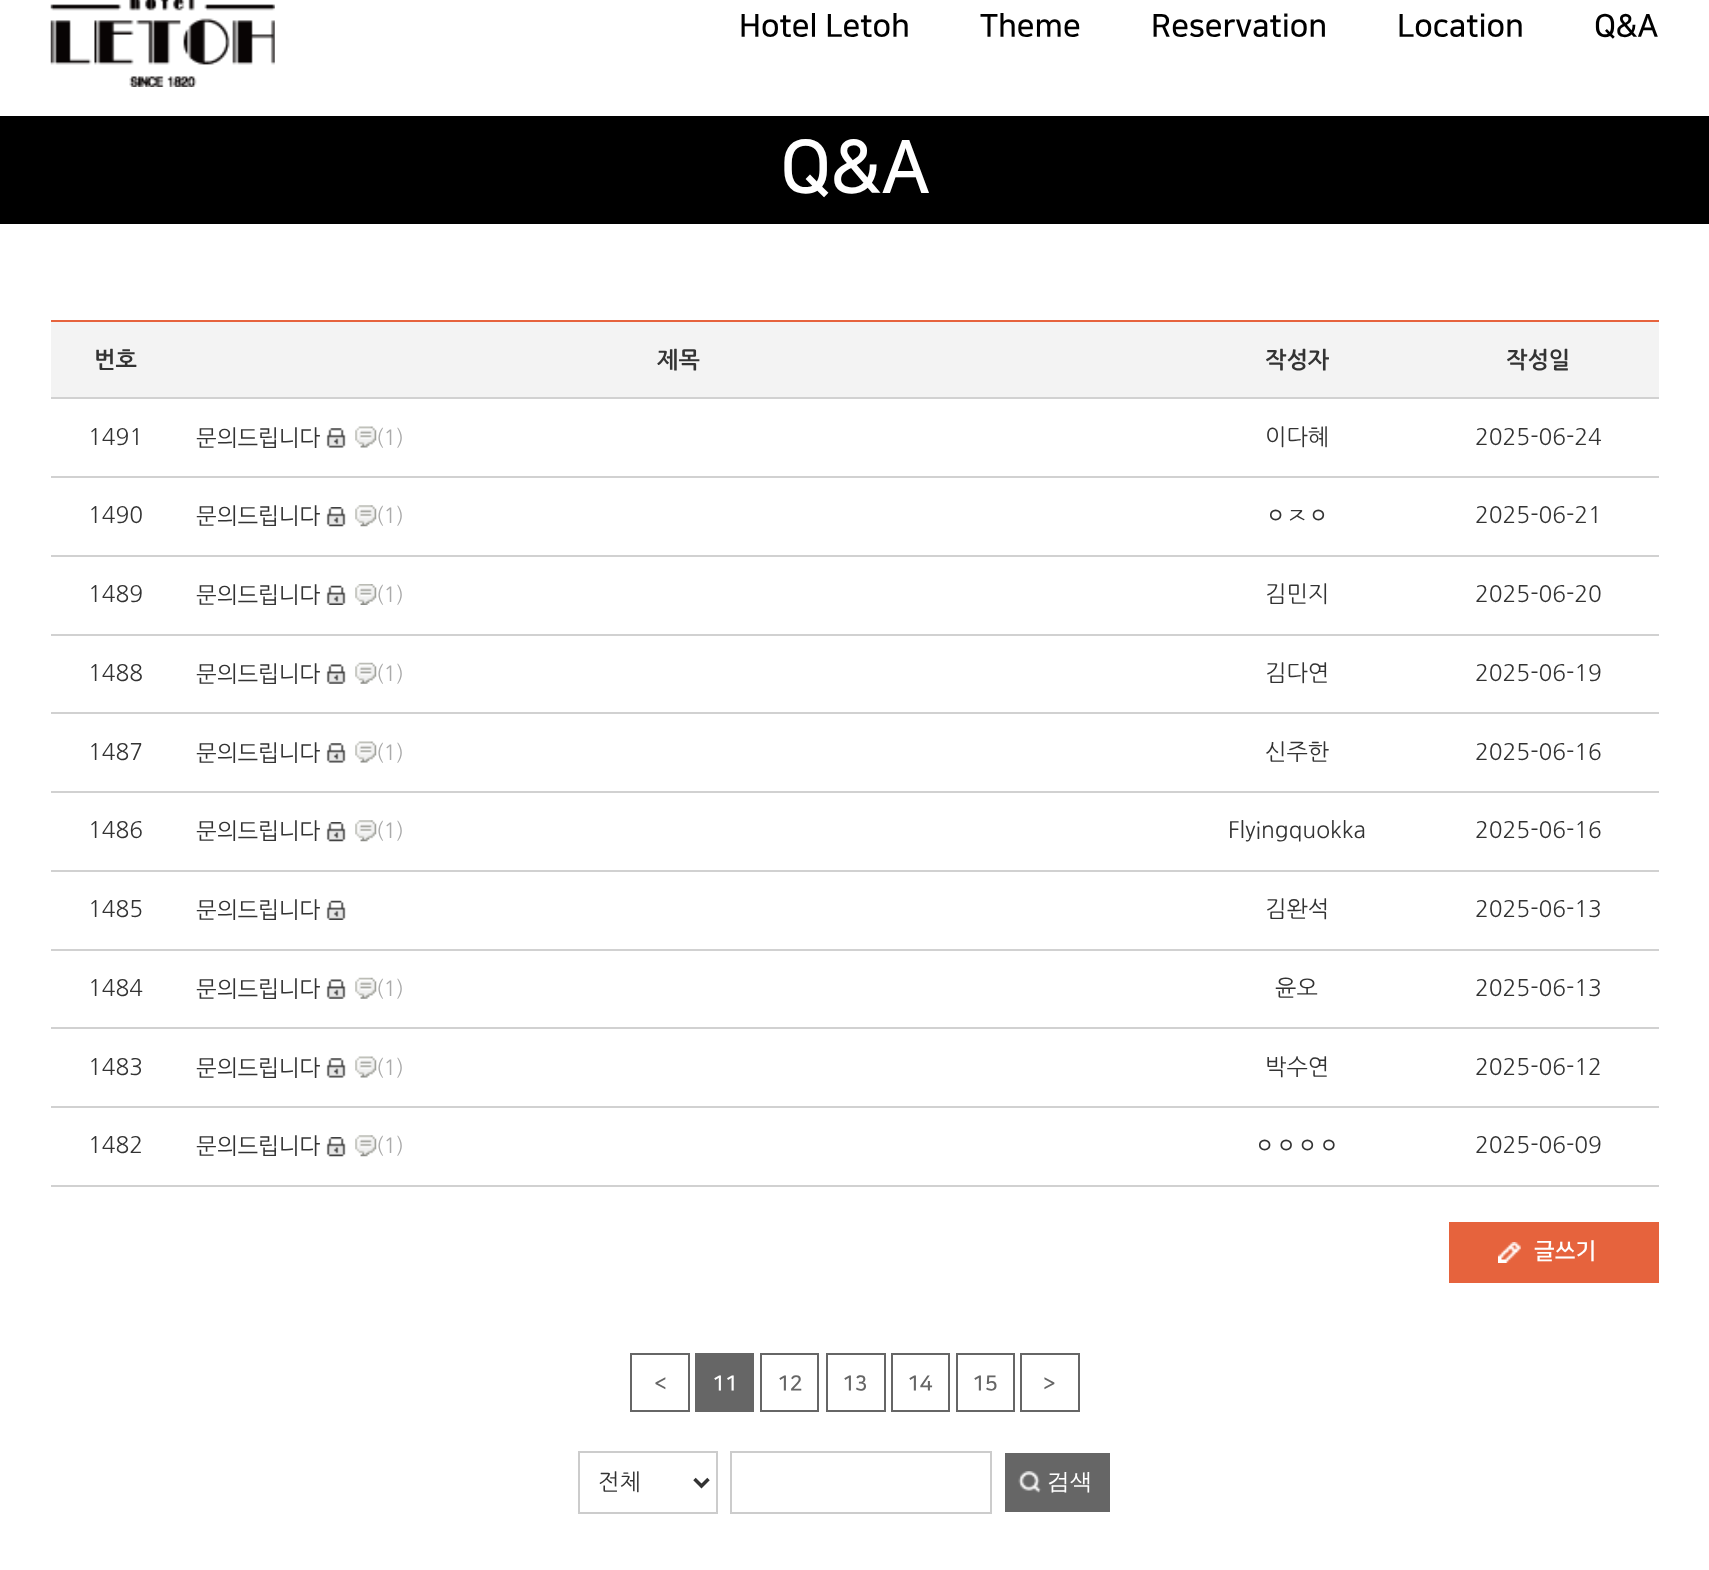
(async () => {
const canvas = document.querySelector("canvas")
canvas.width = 1709
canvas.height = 1570
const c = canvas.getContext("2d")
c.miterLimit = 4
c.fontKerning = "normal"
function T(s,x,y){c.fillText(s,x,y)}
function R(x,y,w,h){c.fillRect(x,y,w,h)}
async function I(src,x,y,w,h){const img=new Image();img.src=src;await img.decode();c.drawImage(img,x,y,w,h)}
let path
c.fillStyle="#fff"
R(0,0,1709,1570)
await I("1.png",50,0,225,87)
c.font="bold 31.5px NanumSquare"
c.fillStyle="#000"
T("Hotel Letoh",739,36)
T("Theme",980,36)
T("Reservation",1151,36)
T("Location",1397,36)
T("Q&A",1594,36)
R(0,116,1709,108)
c.font="bold 73.5px NanumSquare"
c.fillStyle="#fff"
T("Q&A",780,191)
c.fillStyle="#e6633d"
R(51,320,1608,2)
c.fillStyle="#f3f3f3"
R(51,322,1608,75)
c.font="bold 22.75px NanumGothic"
c.fillStyle="#333"
T("번호",94,368)
T("제목",657,368)
T("작성자",1265,368)
c.fillStyle="#d1d1d1"
R(51,397,1608,2)
c.fillStyle="#333"
T("작성일",1506,368)
c.font="22.75px NanumGothic"
T("1491",88,445)
c.font="22.75px NanumSquare"
T("문의드립니다",196,445)
await I("2.png",326,428,20,20)
await I("3.png",355,426,22,22)
c.font="21px NanumGothic"
c.fillStyle="#aaa"
T("(1)",376,445)
c.font="22.75px NanumGothic"
c.fillStyle="#333"
T("이다혜",1265,445)
c.fillStyle="#d1d1d1"
R(51,476,1608,2)
c.fillStyle="#333"
T("2025-06-24",1475,445)
T("1490",88,523)
c.font="22.75px NanumSquare"
T("문의드립니다",196,523)
await I("4.png",326,507,20,20)
await I("5.png",355,505,22,22)
c.font="21px NanumGothic"
c.fillStyle="#aaa"
T("(1)",376,523)
c.font="22.75px NanumGothic"
c.fillStyle="#333"
T("ㅇㅈㅇ",1265,523)
c.fillStyle="#d1d1d1"
R(51,555,1608,2)
c.fillStyle="#333"
T("2025-06-21",1475,523)
T("1489",88,602)
c.font="22.75px NanumSquare"
T("문의드립니다",196,602)
await I("6.png",326,585,20,20)
await I("7.png",355,584,22,21)
c.font="21px NanumGothic"
c.fillStyle="#aaa"
T("(1)",376,602)
c.font="22.75px NanumGothic"
c.fillStyle="#333"
T("김민지",1265,602)
c.fillStyle="#d1d1d1"
R(51,634,1608,2)
c.fillStyle="#333"
T("2025-06-20",1475,602)
T("1488",88,681)
c.font="22.75px NanumSquare"
T("문의드립니다",196,681)
await I("8.png",326,664,20,20)
await I("9.png",355,662,22,22)
c.font="21px NanumGothic"
c.fillStyle="#aaa"
T("(1)",376,681)
c.font="22.75px NanumGothic"
c.fillStyle="#333"
T("김다연",1265,681)
c.fillStyle="#d1d1d1"
R(51,712,1608,2)
c.fillStyle="#333"
T("2025-06-19",1475,681)
T("1487",88,760)
c.font="22.75px NanumSquare"
T("문의드립니다",196,760)
await I("2.png",326,743,20,20)
await I("3.png",355,741,22,22)
c.font="21px NanumGothic"
c.fillStyle="#aaa"
T("(1)",376,760)
c.font="22.75px NanumGothic"
c.fillStyle="#333"
T("신주한",1265,760)
c.fillStyle="#d1d1d1"
R(51,791,1608,2)
c.fillStyle="#333"
T("2025-06-16",1475,760)
T("1486",88,838)
c.font="22.75px NanumSquare"
T("문의드립니다",196,838)
await I("4.png",326,822,20,20)
await I("5.png",355,820,22,22)
c.font="21px NanumGothic"
c.fillStyle="#aaa"
T("(1)",376,838)
c.font="22.75px NanumGothic"
c.fillStyle="#333"
T("Flyingquokka",1228,838)
c.fillStyle="#d1d1d1"
R(51,870,1608,2)
c.fillStyle="#333"
T("2025-06-16",1475,838)
T("1485",88,917)
c.font="22.75px NanumSquare"
T("문의드립니다",196,917)
await I("6.png",326,900,20,20)
c.font="22.75px NanumGothic"
T("김완석",1265,917)
c.fillStyle="#d1d1d1"
R(51,949,1608,2)
c.fillStyle="#333"
T("2025-06-13",1475,917)
T("1484",88,996)
c.font="22.75px NanumSquare"
T("문의드립니다",196,996)
await I("8.png",326,979,20,20)
await I("9.png",355,977,22,22)
c.font="21px NanumGothic"
c.fillStyle="#aaa"
T("(1)",376,996)
c.font="22.75px NanumGothic"
c.fillStyle="#333"
T("윤오",1275,996)
c.fillStyle="#d1d1d1"
R(51,1027,1608,2)
c.fillStyle="#333"
T("2025-06-13",1475,996)
T("1483",88,1075)
c.font="22.75px NanumSquare"
T("문의드립니다",196,1075)
await I("2.png",326,1058,20,20)
await I("3.png",355,1056,22,22)
c.font="21px NanumGothic"
c.fillStyle="#aaa"
T("(1)",376,1075)
c.font="22.75px NanumGothic"
c.fillStyle="#333"
T("박수연",1265,1075)
c.fillStyle="#d1d1d1"
R(51,1106,1608,2)
c.fillStyle="#333"
T("2025-06-12",1475,1075)
T("1482",88,1153)
c.font="22.75px NanumSquare"
T("문의드립니다",196,1153)
await I("4.png",326,1137,20,20)
await I("5.png",355,1135,22,22)
c.font="21px NanumGothic"
c.fillStyle="#aaa"
T("(1)",376,1153)
c.font="22.75px NanumGothic"
c.fillStyle="#333"
T("ㅇㅇㅇㅇ",1254,1153)
c.fillStyle="#d1d1d1"
R(51,1185,1608,2)
c.fillStyle="#333"
T("2025-06-09",1475,1153)
c.fillStyle="#e6633d"
R(1449,1222,210,61)
await I("10.png",1498,1242,23,21)
c.font="bold 22.75px NanumSquare"
c.fillStyle="#fff"
T("글쓰기",1534,1258)
c.strokeStyle="#666"
c.lineWidth=2
c.strokeRect(631,1354,58,57)
c.font="bold 21px NanumSquare"
c.fillStyle="#666"
T("<",654,1390)
R(695,1353,59,59)
c.fillStyle="#fff"
T("11",712,1390)
c.strokeRect(761,1354,57,57)
c.fillStyle="#666"
T("12",777,1390)
c.strokeRect(827,1354,58,57)
T("13",842,1390)
c.strokeRect(892,1354,57,57)
T("14",907,1390)
c.strokeRect(957,1354,57,57)
T("15",972,1390)
c.strokeRect(1021,1354,58,57)
T(">",1043,1390)
c.strokeStyle="#ccc"
c.strokeRect(579,1452,138,61)
path = new Path2D("M694.5 1479l7 7l7-7")
c.strokeStyle="#333"
c.lineWidth=3.5
c.stroke(path)
c.font="22.75px NanumGothic"
c.fillStyle="#333"
T("전체",598,1490)
c.strokeStyle="#ccc"
c.lineWidth=2
c.strokeRect(731,1452,260,61)
c.fillStyle="#666"
R(1005,1453,105,59)
await I("11.png",1018,1471,24,22)
c.font="500 22.75px WenQuanYi Zen Hei"
c.fillStyle="#fff"
T("검색",1047,1489)
})()
